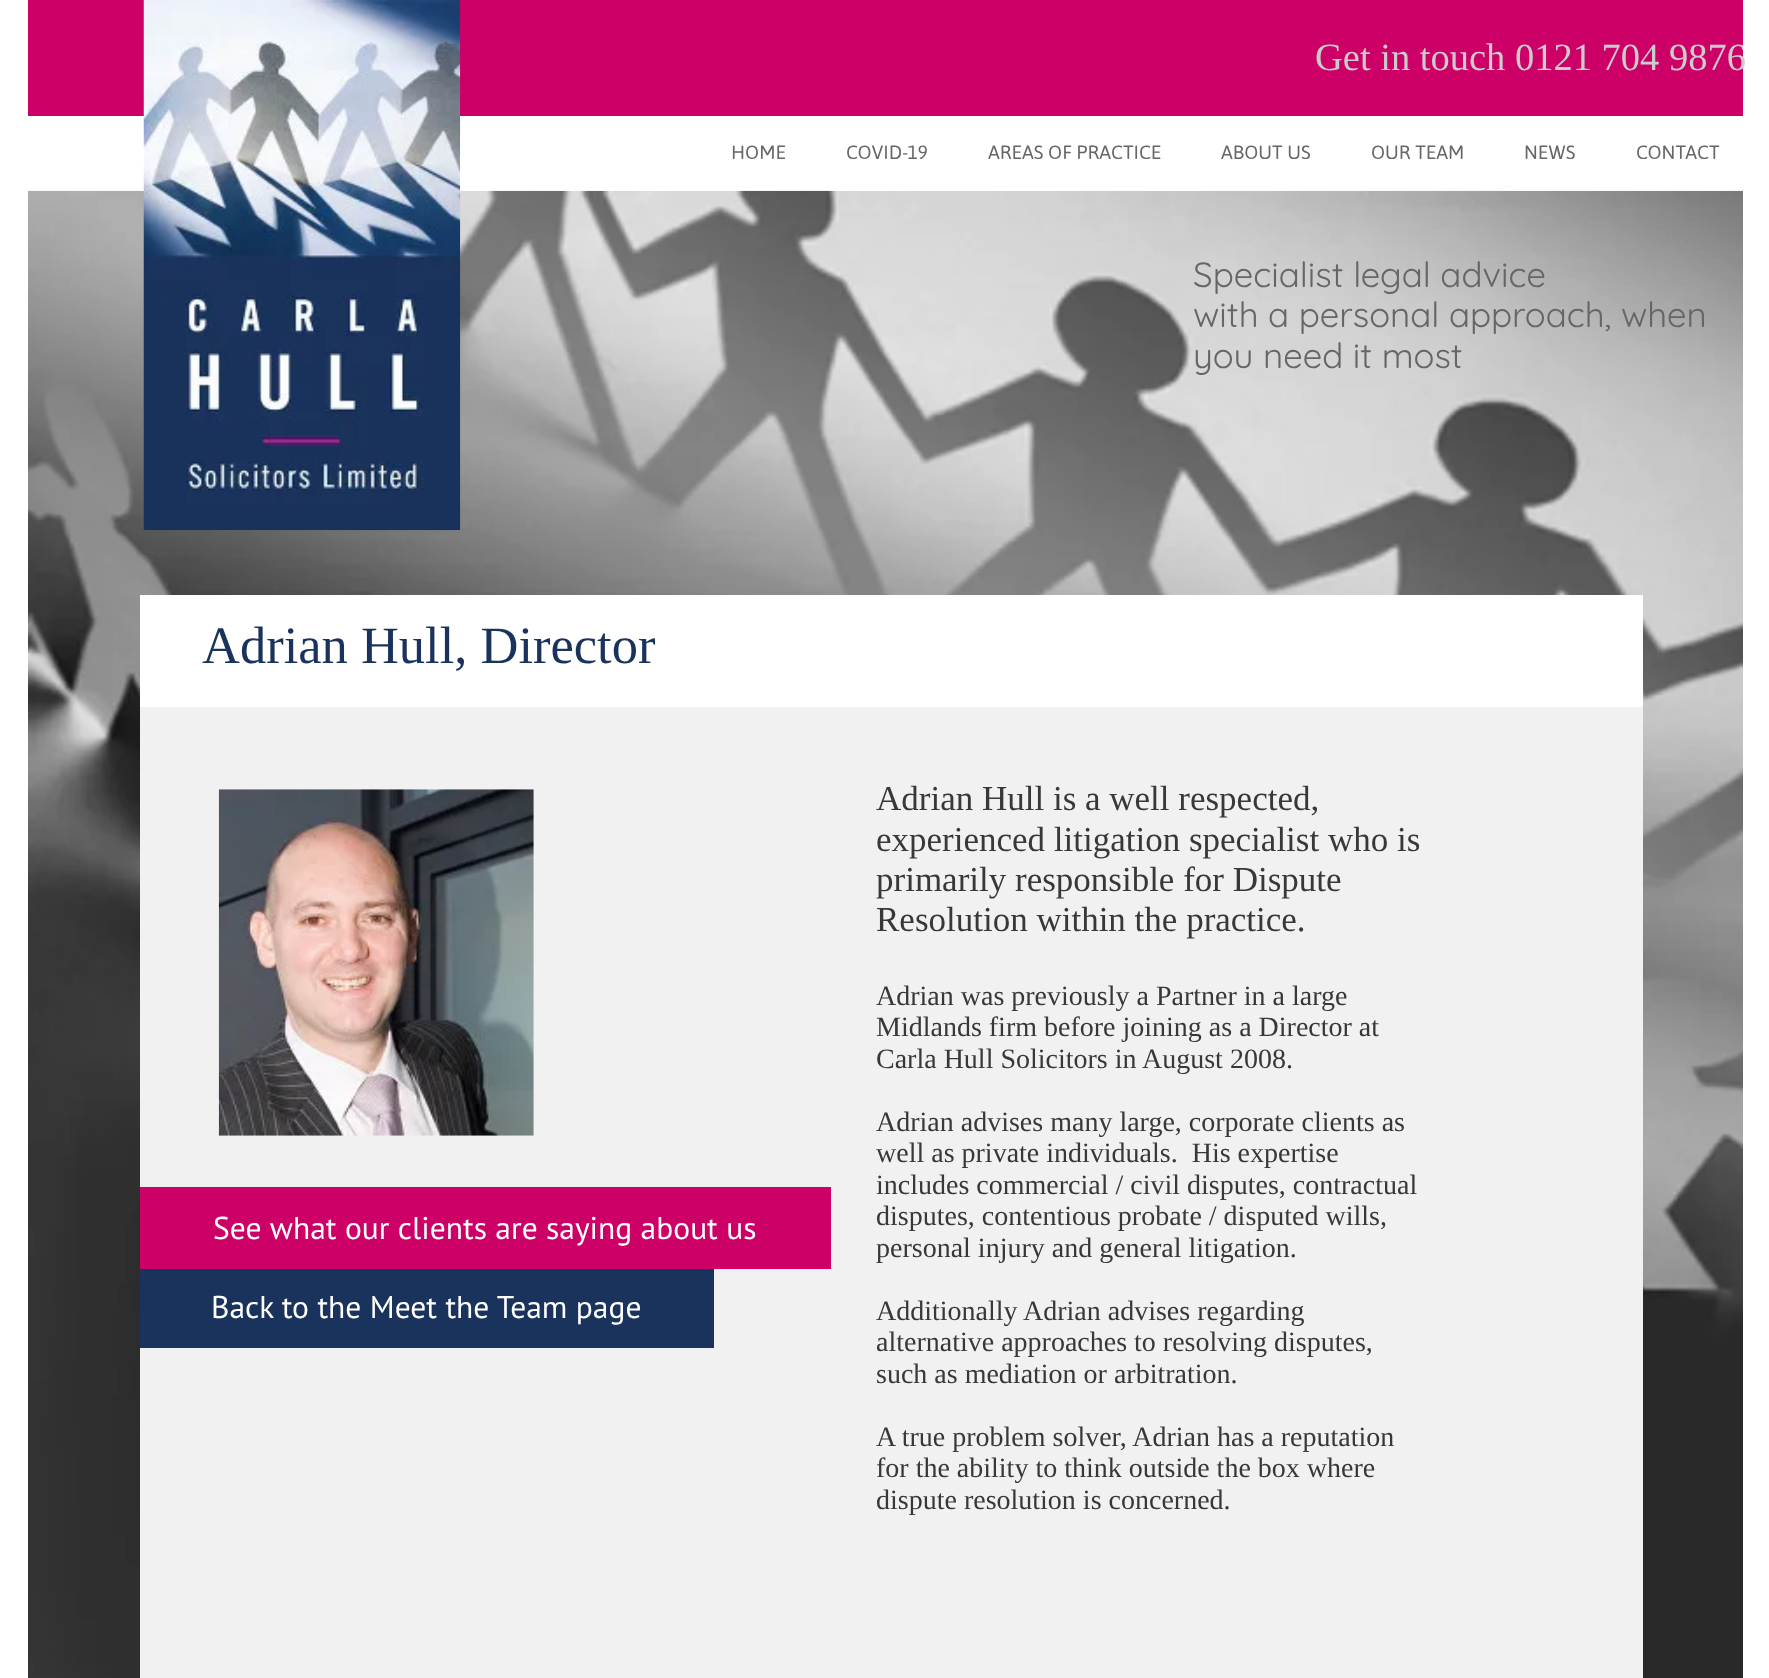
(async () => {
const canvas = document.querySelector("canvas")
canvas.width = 1769
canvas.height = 1678
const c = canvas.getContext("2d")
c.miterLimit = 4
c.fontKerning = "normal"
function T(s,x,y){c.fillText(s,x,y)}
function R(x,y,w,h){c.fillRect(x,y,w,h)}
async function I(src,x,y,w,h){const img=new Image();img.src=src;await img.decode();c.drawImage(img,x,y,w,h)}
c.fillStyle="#fff"
R(0,0,1769,1678)
c.fillStyle="#c06"
R(28,0,1715,116)
await I("2.png",28,190,1715,1488)
await I("1.png",143,0,318,531)
c.font="38.5px Liberation Serif"
c.fillStyle="#ccc"
T("Get in touch 0121 704 9876",1315,70)
c.font="19.25px Asap"
c.fillStyle="#666"
T("HOME",731,159)
T("COVID-19",846,159)
T("AREAS OF PRACTICE",988,159)
T("ABOUT US",1221,159)
T("OUR TEAM",1371,159)
T("NEWS",1524,159)
T("CONTACT",1636,159)
c.font="300 35px Quicksand"
T("Specialist legal advice",1193,287)
T("with a personal approach, when",1193,327)
T("you need it most",1193,368)
c.fillStyle="#fff"
R(140,595,1503,112)
c.font="52.5px Liberation Serif"
c.fillStyle="#1a335c"
T("Adrian Hull, Director",202,663)
c.fillStyle="#f1f1f1"
R(140,707,1503,971)
await I("3.png",218,789,316,347)
c.font="35px Liberation Serif"
c.fillStyle="#383838"
T("Adrian Hull is a well respected,",876,810)
T("experienced litigation specialist who is",876,851)
T("primarily responsible for Dispute",876,891)
T("Resolution within the practice.",876,931)
c.font="28px Liberation Serif"
T("Adrian was previously a Partner in a large",876,1005)
T("Midlands firm before joining as a Director at",876,1036)
T("Carla Hull Solicitors in August 2008.",876,1068)
T("Adrian advises many large, corporate clients as",876,1131)
T("well as private individuals.  His expertise",876,1162)
T("includes commercial / civil disputes, contractual",876,1194)
T("disputes, contentious probate / disputed wills,",876,1225)
T("personal injury and general litigation.",876,1257)
T("Additionally Adrian advises regarding",876,1320)
T("alternative approaches to resolving disputes,",876,1351)
T("such as mediation or arbitration.",876,1383)
T("A true problem solver, Adrian has a reputation",876,1446)
T("for the ability to think outside the box where",876,1477)
T("dispute resolution is concerned.",876,1509)
c.fillStyle="#c06"
R(140,1187,691,82)
c.font="31.5px PT Sans"
c.fillStyle="#fff"
T("See what our clients are saying about us",213,1239)
c.fillStyle="#1a335c"
R(140,1269,574,79)
c.fillStyle="#fff"
T("Back to the Meet the Team page",211,1318)
})()
